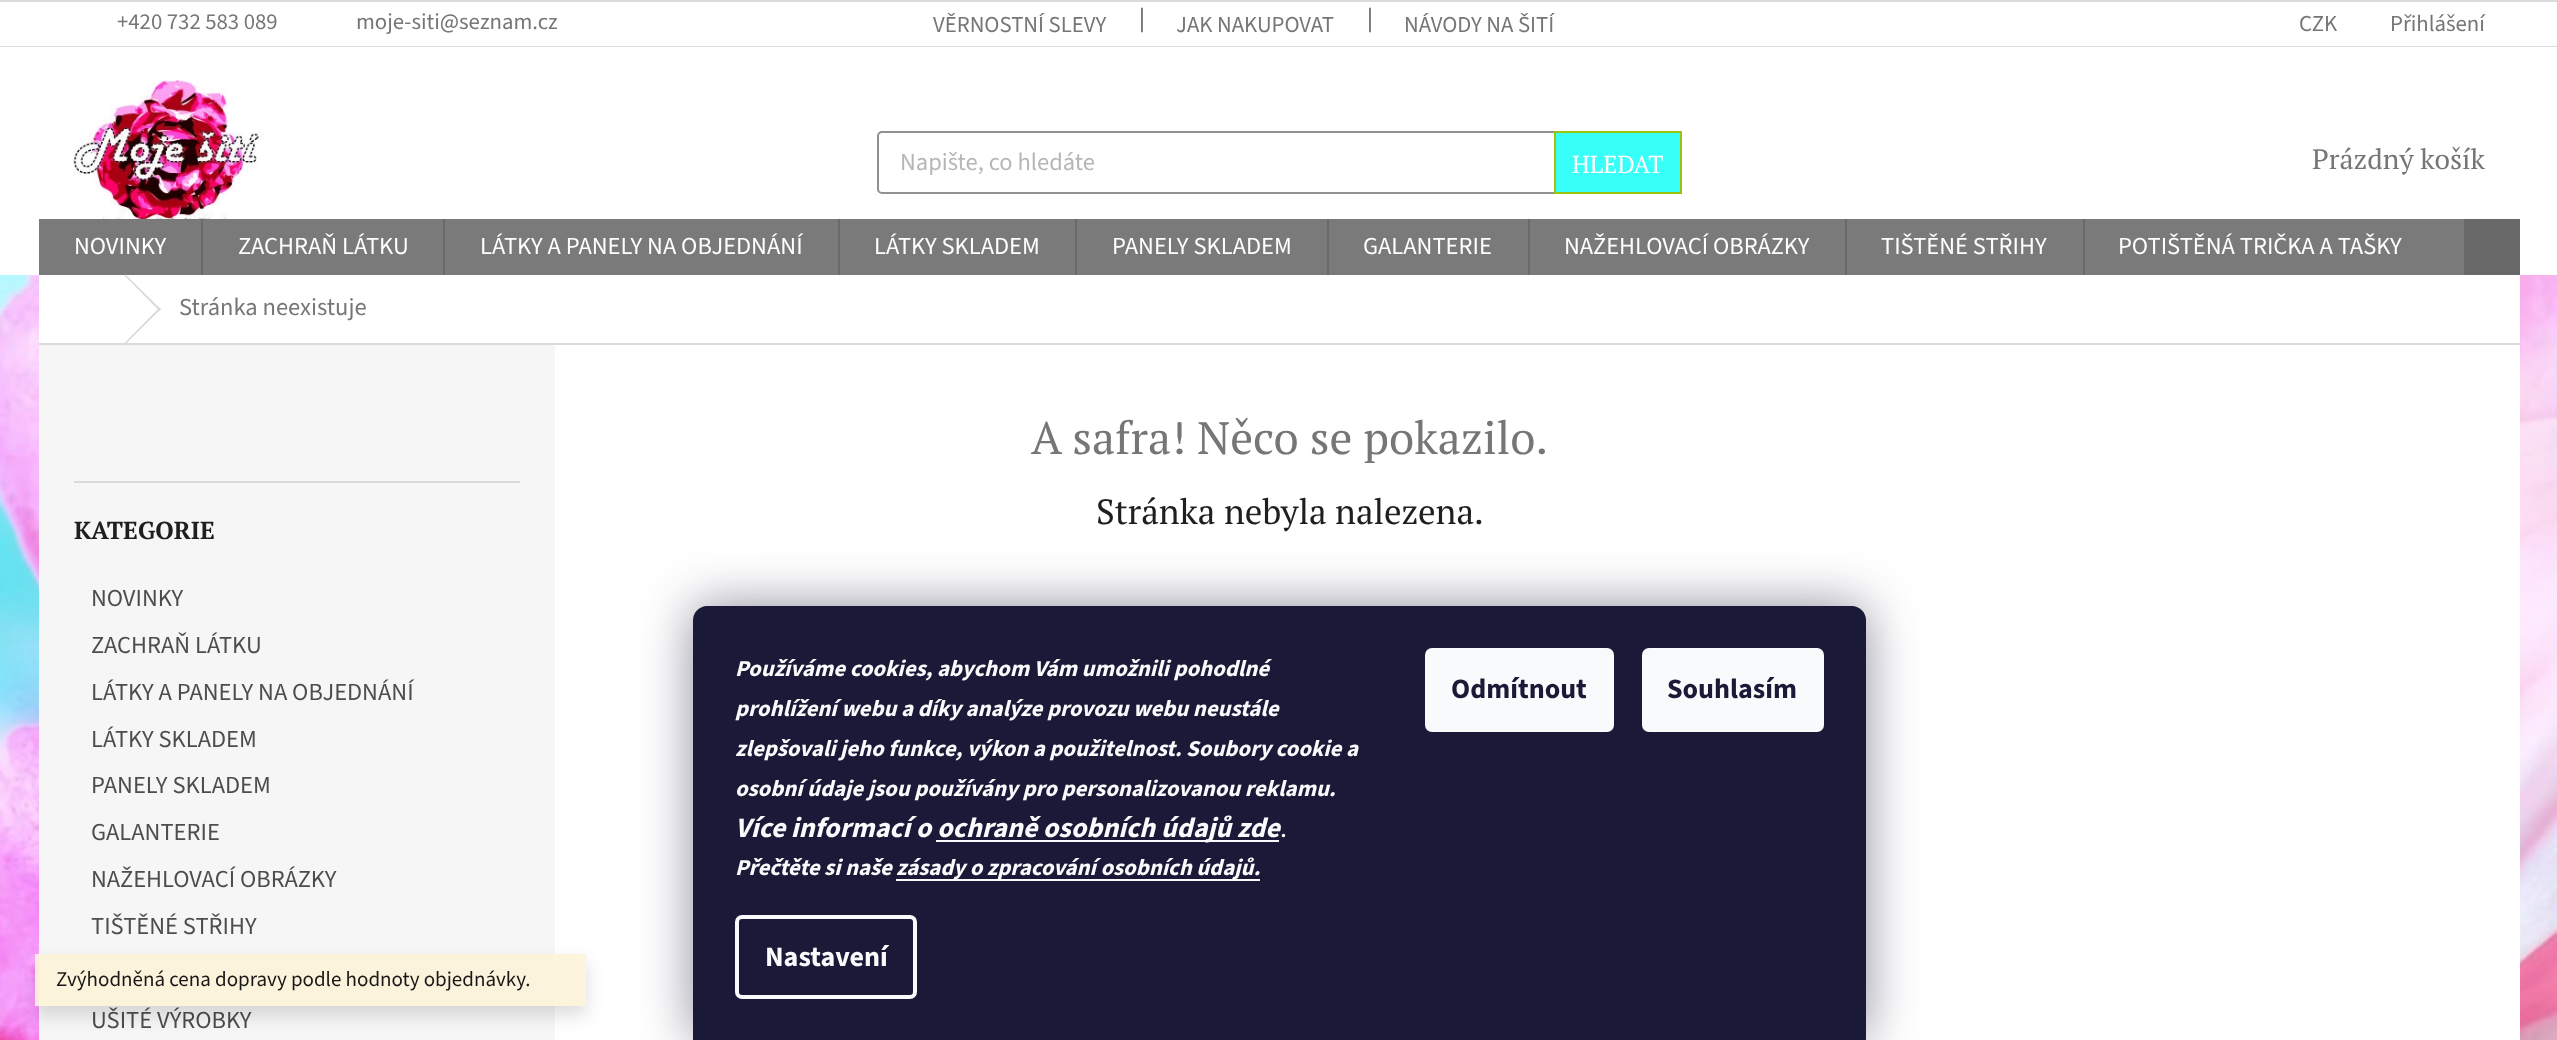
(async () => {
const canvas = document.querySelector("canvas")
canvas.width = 2557
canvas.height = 1040
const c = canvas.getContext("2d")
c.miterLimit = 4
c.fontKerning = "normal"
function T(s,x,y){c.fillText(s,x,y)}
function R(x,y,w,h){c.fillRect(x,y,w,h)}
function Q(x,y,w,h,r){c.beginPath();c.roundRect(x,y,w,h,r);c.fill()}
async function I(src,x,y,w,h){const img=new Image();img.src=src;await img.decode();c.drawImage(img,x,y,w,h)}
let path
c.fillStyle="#fff"
R(0,0,2557,1040)
await I("1.png",0,275,2557,765)
c.fillStyle="#dadada"
R(0,0,2557,2)
R(0,46,2557,1)
c.font="22.75px 'Source Sans 3'"
c.fillStyle="#767676"
T("+420 732 583 089",117,29)
T("moje-siti@seznam.cz",356,29)
T("VĚRNOSTNÍ SLEVY",933,32)
c.font="24.5px 'Source Sans 3'"
c.fillStyle="#4d4d4d"
T("|",1139,26)
c.font="22.75px 'Source Sans 3'"
c.fillStyle="#767676"
T("JAK NAKUPOVAT",1176,32)
c.font="24.5px 'Source Sans 3'"
c.fillStyle="#4d4d4d"
T("|",1367,26)
c.font="22.75px 'Source Sans 3'"
c.fillStyle="#767676"
T("NÁVODY NA ŠITÍ",1404,32)
T("CZK",2299,31)
T("Přihlášení",2390,31)
await I("2.png",73,80,191,139)
c.beginPath()
c.roundRect(878,132,803,61,4)
c.strokeStyle="#919191"
c.lineWidth=2
c.stroke()
c.font="24.5px 'Source Sans 3'"
c.fillStyle="#b6b6b6"
T("Napište, co hledáte",900,170)
c.fillStyle="#38fff8"
c.beginPath()
c.rect(1555,132,126,61)
c.fill()
c.strokeStyle="#9bc20f"
c.stroke()
c.font="24.5px PT Serif"
c.fillStyle="#fff"
T("HLEDAT",1572,173)
c.font="28px PT Serif"
c.fillStyle="#767676"
T("Prázdný košík",2312,169)
c.fillStyle="#7a7a7a"
R(39,219,2425,56)
c.font="24.5px 'Source Sans 3'"
c.fillStyle="#fff"
T("NOVINKY",74,254)
c.fillStyle="#696969"
R(201,219,2,56)
c.fillStyle="#fff"
T("ZACHRAŇ LÁTKU",238,254)
c.fillStyle="#696969"
R(443,219,2,56)
c.fillStyle="#fff"
T("LÁTKY A PANELY NA OBJEDNÁNÍ",480,254)
c.fillStyle="#696969"
R(838,219,2,56)
c.fillStyle="#fff"
T("LÁTKY SKLADEM",874,254)
c.fillStyle="#696969"
R(1075,219,2,56)
c.fillStyle="#fff"
T("PANELY SKLADEM",1112,254)
c.fillStyle="#696969"
R(1327,219,2,56)
c.fillStyle="#fff"
T("GALANTERIE",1363,254)
c.fillStyle="#696969"
R(1528,219,2,56)
c.fillStyle="#fff"
T("NAŽEHLOVACÍ OBRÁZKY",1564,254)
c.fillStyle="#696969"
R(1845,219,2,56)
c.fillStyle="#fff"
T("TIŠTĚNÉ STŘIHY",1881,254)
c.fillStyle="#696969"
R(2083,219,2,56)
c.fillStyle="#fff"
T("POTIŠTĚNÁ TRIČKA A TAŠKY",2118,254)
c.fillStyle="#696969"
R(2464,219,56,56)
c.fillStyle="#fff"
R(39,275,2481,68)
c.fillStyle="#dadada"
R(39,343,2481,2)
path = new Path2D("M124.5 275.5l1-1l35.5 35l-1.5 1.5z")
c.fill(path)
path = new Path2D("M159.5 307.5l1.5 1.5l-35.5 35l-1-1z")
c.fill(path)
c.fillStyle="#767676"
T("Stránka neexistuje",179,315)
c.fillStyle="#fff"
R(555,345,1965,695)
c.font="45.5px PT Serif"
c.fillStyle="#767676"
T("A safra! Něco se pokazilo.",1031,454)
c.font="35px PT Serif"
c.fillStyle="#1f1f1f"
T("Stránka nebyla nalezena.",1096,524)
c.fillStyle="#f6f6f6"
R(39,345,516,695)
c.fillStyle="#dadada"
R(74,481,446,2)
c.font="bold 24.5px PT Serif"
c.fillStyle="#1f1f1f"
T("KATEGORIE",74,539)
c.font="24.5px 'Source Sans 3'"
c.fillStyle="#4d4d4d"
T("NOVINKY",91,606)
T("ZACHRAŇ LÁTKU",91,653)
T("LÁTKY A PANELY NA OBJEDNÁNÍ",91,700)
T("LÁTKY SKLADEM",91,747)
T("PANELY SKLADEM",91,793)
T("GALANTERIE",91,840)
T("NAŽEHLOVACÍ OBRÁZKY",91,887)
T("TIŠTĚNÉ STŘIHY",91,934)
T("UŠITÉ VÝROBKY",91,1028)
c.save()
path = new Path2D("M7 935h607v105h-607zm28 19h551v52h-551z")
c.clip(path,"evenodd")
c.fillStyle="#00000024"
c.filter="blur(9px)"
c.beginPath()
c.rect(35,963,551,52)
c.fill()
c.filter="none"
c.restore()
c.fillStyle="#fdf3dae6"
R(35,954,551,52)
c.font="21px 'Source Sans 3'"
c.fillStyle="#191816"
T("Zvýhodněná cena dopravy podle hodnoty objednávky.",56,986)
c.fillStyle="#1b193980"
c.filter="blur(26px)"
c.beginPath()
c.roundRect(693,606,1173,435,14)
c.fill()
c.filter="none"
c.fillStyle="#1a1937"
path = new Path2D("M707 606h1145c7.5 0 14 6.5 14 14v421h-1173v-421c0-7.5 6.5-14 14-14z")
c.fill(path)
c.font="italic bold 22.75px 'Source Sans 3'"
c.fillStyle="#f8fafb"
T("Používáme cookies, abychom Vám umožnili pohodlné",735,676)
T("prohlížení webu a díky analýze provozu webu neustále",735,716)
T("zlepšovali jeho funkce, výkon a použitelnost. Soubory cookie a",735,756)
T("osobní údaje jsou používány pro personalizovanou reklamu.",735,796)
c.font="italic bold 28px 'Source Sans 3'"
T("Více informací o",735,837)
R(936,840,343,2)
T("ochraně osobních údajů zde",937,837)
c.font="28px 'Source Sans 3'"
T(".",1280,837)
c.font="italic bold 22.75px 'Source Sans 3'"
T("Přečtěte si naše",735,875)
R(896,879,364,2)
T("zásady o zpracování osobních údajů.",896,875)
c.beginPath()
c.roundRect(737,917,178,80,5)
c.strokeStyle="#f8fafb"
c.lineWidth=4
c.stroke()
c.font="bold 28px 'Source Sans 3'"
T("Nastavení",765,966)
Q(1425,648,189,84,7)
c.fillStyle="#1a1937"
T("Odmítnout",1451,698)
c.fillStyle="#f8fafb"
Q(1642,648,182,84,7)
c.fillStyle="#1a1937"
T("Souhlasím",1667,698)
})()
